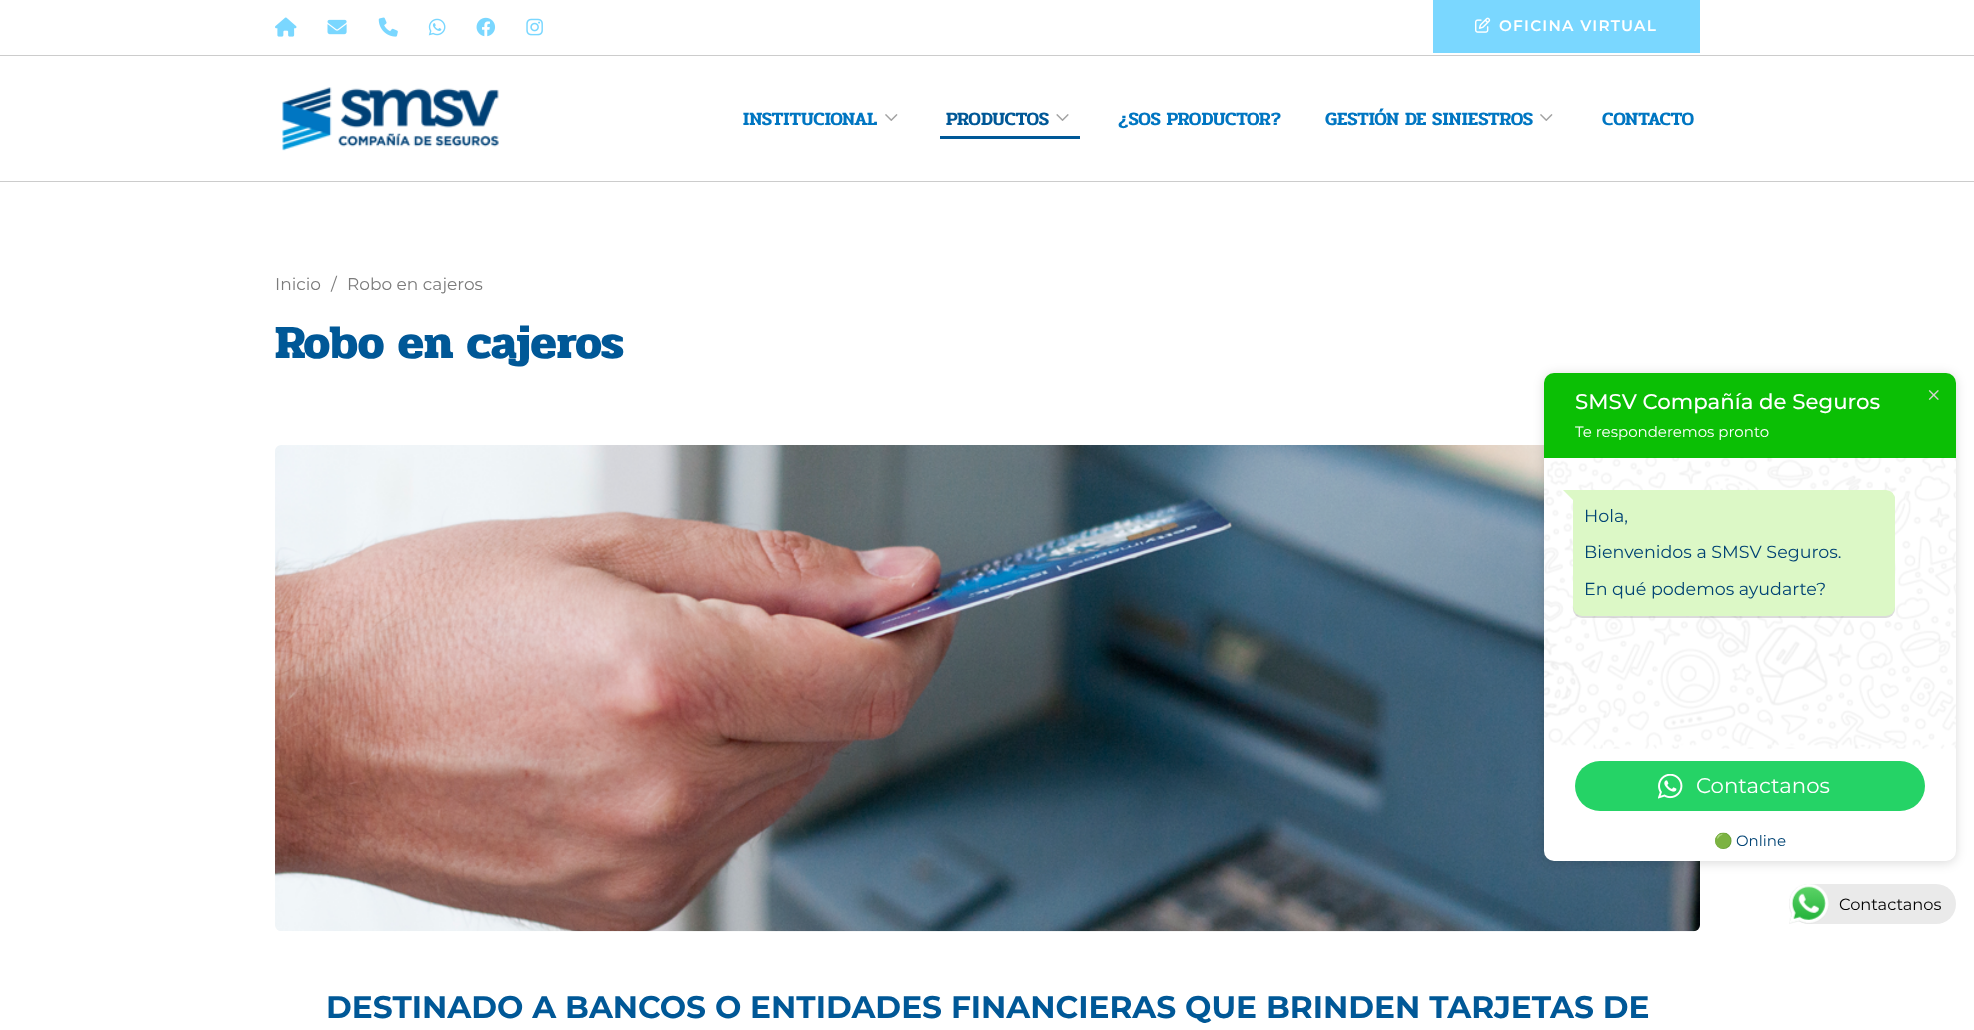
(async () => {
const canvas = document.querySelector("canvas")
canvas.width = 1974
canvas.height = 1030
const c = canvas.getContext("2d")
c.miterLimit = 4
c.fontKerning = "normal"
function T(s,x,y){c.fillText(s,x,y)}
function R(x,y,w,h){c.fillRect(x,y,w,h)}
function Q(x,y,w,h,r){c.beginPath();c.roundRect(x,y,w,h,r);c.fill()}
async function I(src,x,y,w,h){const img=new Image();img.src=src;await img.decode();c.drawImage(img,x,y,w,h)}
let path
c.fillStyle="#fff"
R(0,0,1974,1030)
c.fillStyle="#ccc"
R(0,55,1974,1)
await I("1.png",275,17,22,20)
await I("2.png",327,19,20,16)
await I("3.png",378,17,20,20)
await I("4.png",428,18,18,18)
await I("5.png",476,17,20,20)
await I("6.png",526,18,17,18)
c.fillStyle="#7ad7ff"
R(1433,0,267,53)
await I("7.png",1475,17,16,16)
c.letterSpacing="1.25px"
c.font="600 15.25px Montserrat"
c.fillStyle="#fff"
T("OFICINA VIRTUAL",1499,31)
c.fillStyle="#ccc"
R(0,181,1974,1)
await I("8.png",282,87,217,64)
c.letterSpacing="0px"
c.font="600 18.9px Pridi"
c.fillStyle="#0076c2"
T("INSTITUCIONAL",743,125)
await I("9.png",885,114,13,7)
c.fillStyle="#005897"
T("PRODUCTOS",946,125)
await I("10.png",1056,114,13,7)
R(940,136,140,3)
c.fillStyle="#0076c2"
T("¿SOS PRODUCTOR?",1118,125)
T("GESTIÓN DE SINIESTROS",1325,125)
await I("9.png",1540,114,13,7)
T("CONTACTO",1602,125)
c.font="17px Montserrat"
c.fillStyle="#7b7b7b"
T("Inicio",275,290)
T("/",331,290)
T("Robo en cajeros",347,290)
c.font="bold 47.75px Pridi"
c.fillStyle="#005897"
T("Robo en cajeros",275,358)
await I("11.png",275,445,1425,487)
c.font="bold 31.25px Montserrat"
T("DESTINADO A BANCOS O ENTIDADES FINANCIERAS QUE BRINDEN TARJETAS DE",326,1018)
c.fillStyle="#00000024"
c.filter="blur(5.5px)"
c.beginPath()
c.roundRect(1544,374,412,489,10)
c.fill()
c.filter="none"
c.fillStyle="#0bbf05"
c.beginPath()
c.roundRect(1544,373,412,85,[10,10,0,0])
c.fill()
c.font="500 21.25px Montserrat"
c.fillStyle="#fff"
T("SMSV Compañía de Seguros",1575,409)
c.font="15px Montserrat"
T("Te responderemos pronto",1575,437)
R(1544,458,412,363)
await I("12.png",1544,457,412,292)
c.fillStyle="#00000024"
c.filter="blur(0.5px)"
c.beginPath()
c.roundRect(1573,491,322,127,9)
c.fill()
c.filter="none"
c.fillStyle="#dcf8c6"
c.beginPath()
c.roundRect(1573,490,322,126,[0,9,9,9])
c.fill()
path = new Path2D("M1563 490h10.5v10.5z")
c.fill(path)
c.font="17.5px Montserrat"
c.fillStyle="#004374"
T("Hola,",1584,522)
T("Bienvenidos a SMSV Seguros.",1584,558)
T("En qué podemos ayudarte?",1584,595)
c.fillStyle="#25d366"
Q(1575,761,350,50,25)
await I("13.png",1658,774,25,25)
c.font="21.25px Montserrat"
c.fillStyle="#fff"
T("Contactanos",1696,793)
c.beginPath()
c.roundRect(1544,821,412,40,[0,0,10,10])
c.fill()
c.font="15px Noto Color Emoji"
c.fillStyle="#004374"
T("🟢",1714,846)
c.font="15px Montserrat"
T("Online",1736,846)
await I("14.png",1928,390,11,10)
c.fillStyle="#eaeaea"
Q(1789,884,167,40,20)
await I("15.png",1789,884,40,40)
c.font="16.25px Montserrat"
c.fillStyle="#000"
T("Contactanos",1839,910)
})()
